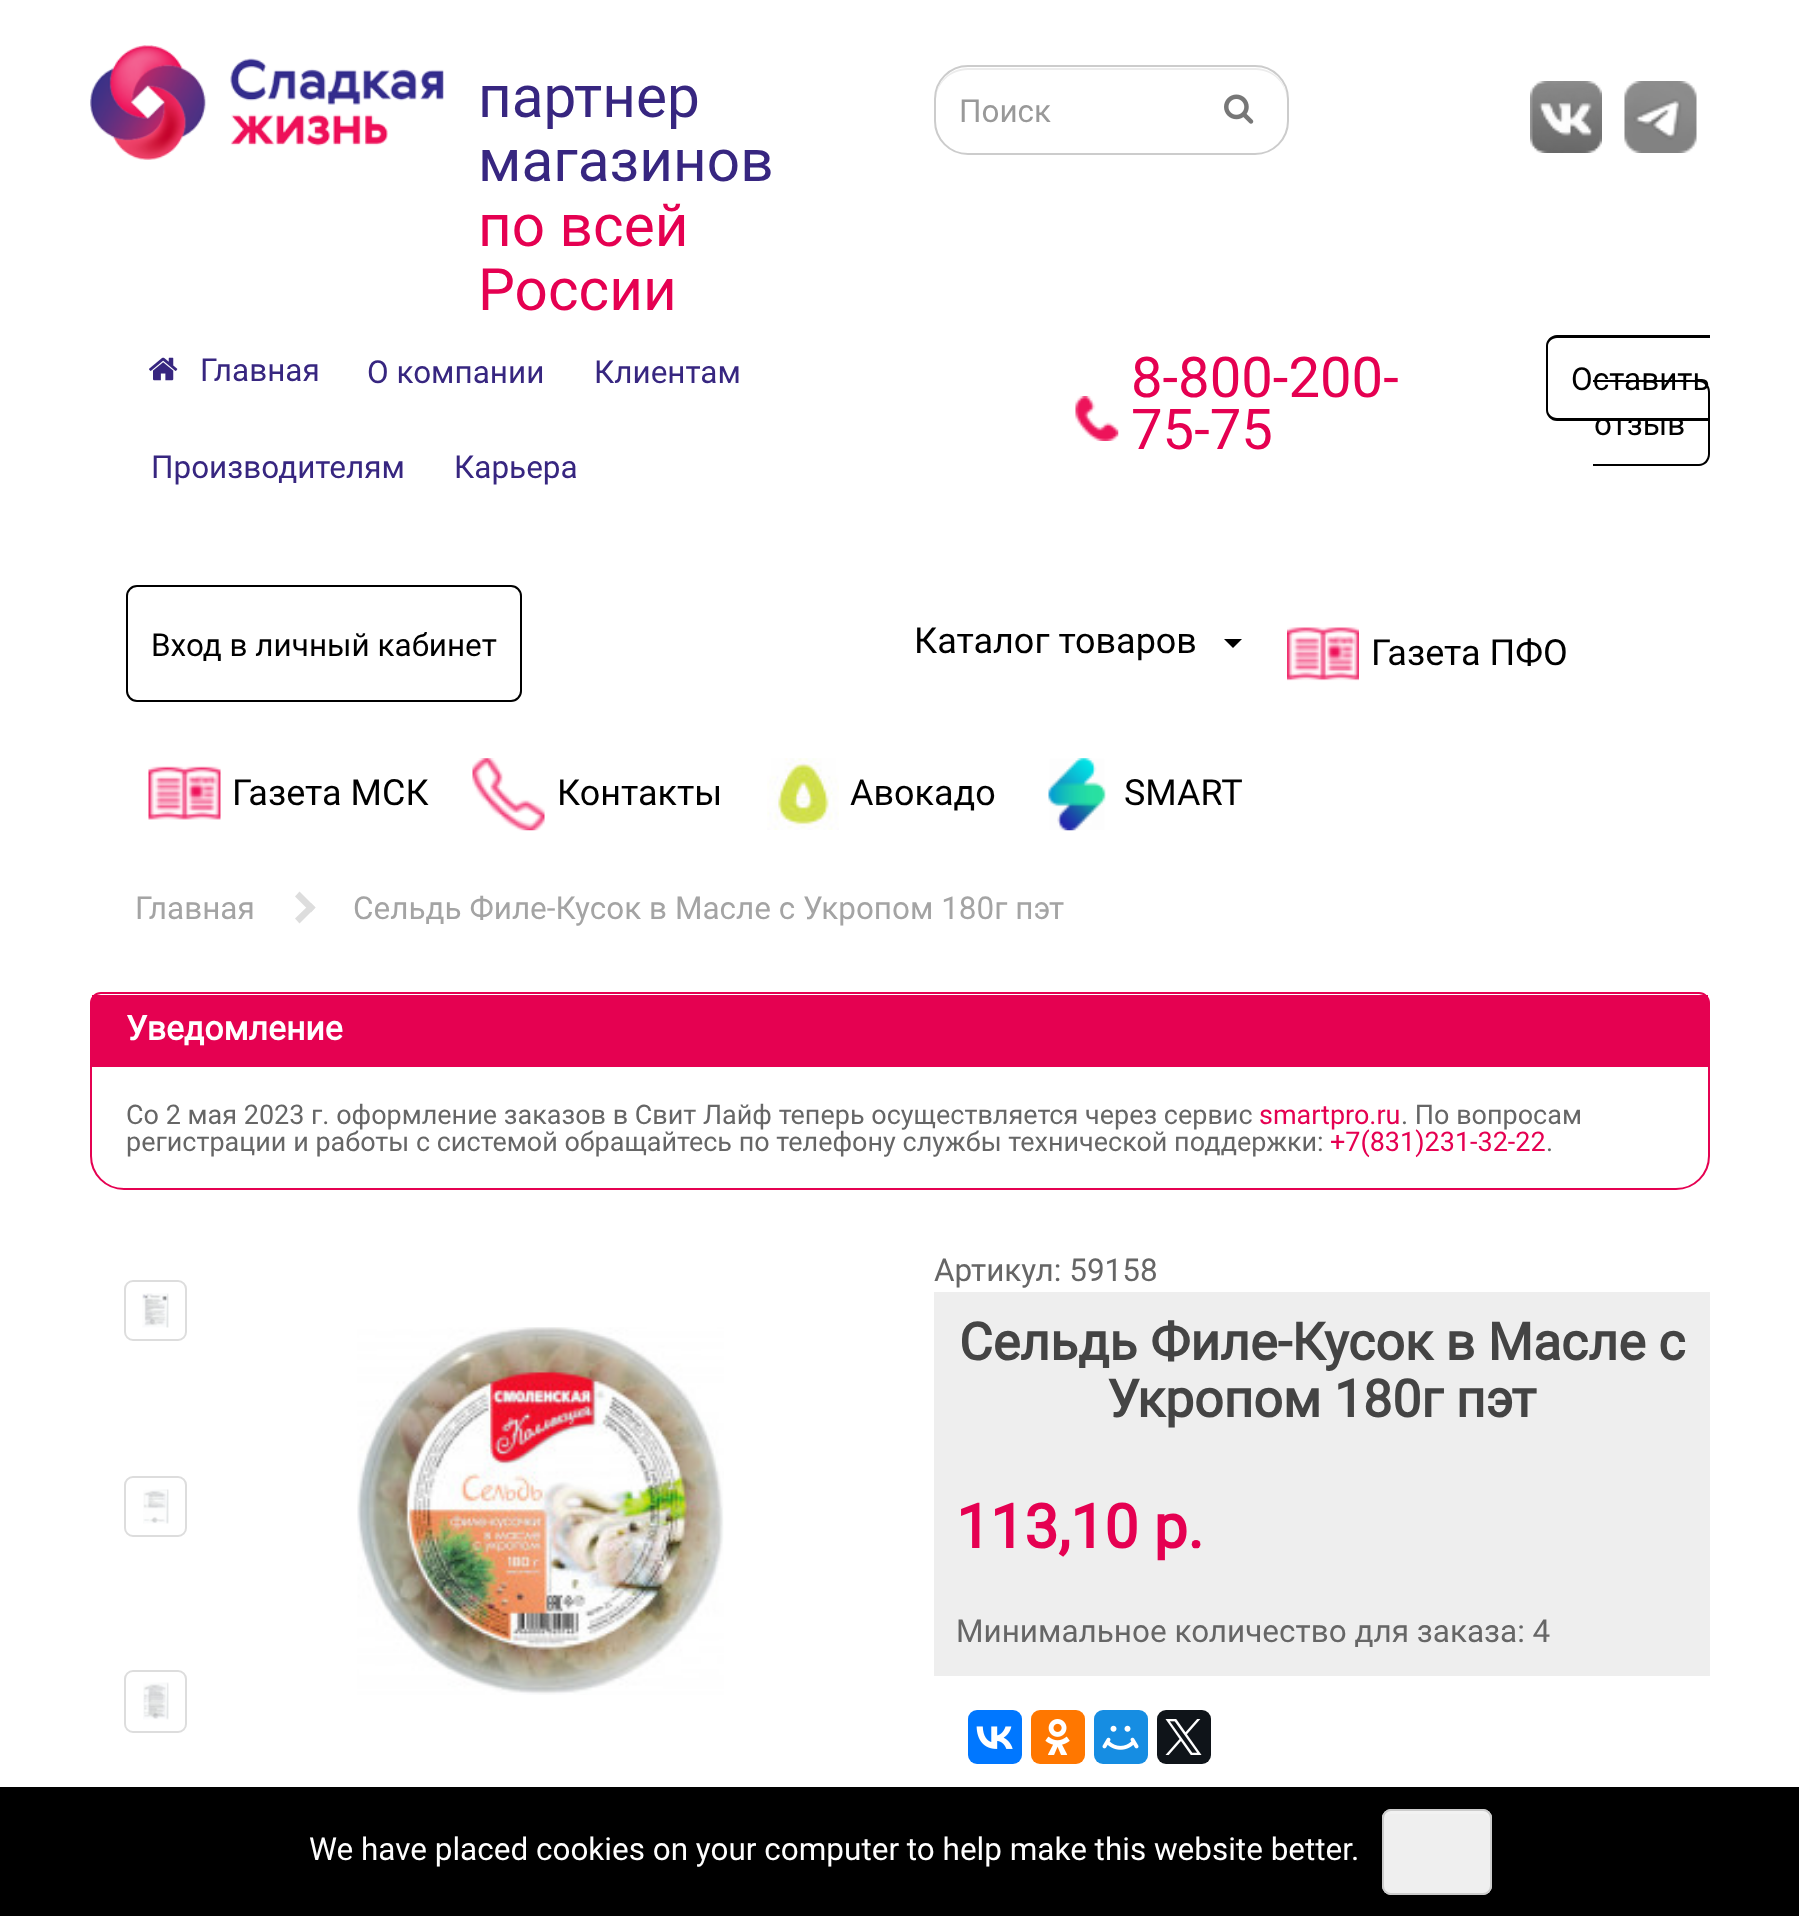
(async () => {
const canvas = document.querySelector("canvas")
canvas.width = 1799
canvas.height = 1916
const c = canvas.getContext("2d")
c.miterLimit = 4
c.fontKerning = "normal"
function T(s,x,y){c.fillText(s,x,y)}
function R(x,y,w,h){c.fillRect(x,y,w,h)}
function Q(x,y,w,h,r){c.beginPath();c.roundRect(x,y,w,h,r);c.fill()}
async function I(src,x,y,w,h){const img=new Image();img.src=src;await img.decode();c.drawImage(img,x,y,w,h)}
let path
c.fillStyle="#fff"
R(0,0,1799,1916)
await I("1.png",90,45,354,115)
c.font="58.5px Roboto"
c.fillStyle="#372680"
T("партнер",478,117)
T("магазинов",478,181)
c.fillStyle="#e50051"
T("по всей",478,246)
T("России",478,310)
c.fillStyle="#ececec"
path = new Path2D("M968 70h288c17 0 31 14 31 31v-1c0-18-14-32-32-32h-287c-18 0-32 14-32 32v1c0-17 14-31 32-31z")
c.fill(path)
c.beginPath()
c.roundRect(935,66,353,88,33)
c.strokeStyle="#ccc"
c.lineWidth=2
c.stroke()
c.font="31.5px Roboto"
c.fillStyle="#999"
T("Поиск",959,122)
await I("2.png",1224,94,30,30)
await I("3.png",1530,81,72,72)
await I("4.png",1624,81,73,72)
await I("5.png",149,357,29,24)
c.fillStyle="#372680"
T("Главная",200,381)
T("О компании",367,383)
T("Клиентам",594,383)
T("Производителям",151,478)
T("Карьера",454,478)
await I("6.png",1075,396,44,45)
c.font="56.25px Roboto"
c.fillStyle="#e50051"
T("8-800-200-",1131,397)
T("75-75",1131,449)
c.fillStyle="#000"
path = new Path2D("M1557 335h153v86h-153c-6 0-11-5-11-11v-64c0-6 5-11 11-11zm0 3h153v80h-153c-5 0-9-4-9-8v-64c0-4 4-8 9-8z")
c.fill(path,"evenodd")
path = new Path2D("M1593 380h106c6 0 11 5 11 12v62c0 7-5 12-11 12h-106zm0 2h106c5 0 9 5 9 10v62c0 5-4 10-9 10h-106z")
c.fill(path,"evenodd")
c.font="31.5px Roboto"
T("Оставить",1571,390)
T("отзыв",1594,435)
c.beginPath()
c.roundRect(127,586,394,115,10)
c.strokeStyle="#000"
c.stroke()
T("Вход в личный кабинет",151,656)
c.font="36px Roboto"
T("Каталог товаров",914,653)
path = new Path2D("M1224 639h18l-9 9z")
c.fill(path)
await I("7.png",1287,627,72,54)
T("Газета ПФО",1371,665)
await I("8.png",148,766,73,54)
T("Газета МСК",232,805)
await I("9.png",472,758,73,73)
T("Контакты",557,805)
await I("10.png",767,758,72,72)
T("Авокадо",850,805)
await I("11.png",1048,758,58,73)
T("SMART",1124,805)
c.font="31.5px Roboto"
c.fillStyle="#a4a4a4"
T("Главная",135,919)
c.fillStyle="#ddd"
path = new Path2D("M295 896.5l4.5-5l16 16l-4.5 5z")
c.fill(path)
path = new Path2D("M295 918.5l16-15.5l4.5 4.5l-16 16z")
c.fill(path)
c.fillStyle="#a4a4a4"
T("Сельдь Филе-Кусок в Масле с Укропом 180г пэт",353,919)
c.beginPath()
c.roundRect(91,993,1618,196,[10,10,33,33])
c.strokeStyle="#e50151"
c.stroke()
c.fillStyle="#e50151"
R(92,995,1616,72)
c.font="bold 33.75px Roboto"
c.fillStyle="#fff"
T("Уведомление",126,1040)
c.font="27px Roboto"
c.fillStyle="#666"
T("Со 2 мая 2023 г. оформление заказов в Свит Лайф теперь осуществляется через сервис",126,1124)
c.fillStyle="#e50051"
T("smartpro.ru",1259,1124)
c.fillStyle="#666"
T(". По вопросам",1401,1124)
T("регистрации и работы с системой обращайтесь по телефону службы технической поддержки:",126,1151)
c.fillStyle="#e50051"
T("+7(831)231‐32‐22",1330,1151)
c.fillStyle="#666"
T(".",1546,1151)
c.beginPath()
c.roundRect(125,1281,61,59,8)
c.strokeStyle="#ddd"
c.stroke()
await I("12.png",142,1293,27,35)
c.beginPath()
c.roundRect(125,1477,61,59,8)
c.stroke()
await I("13.png",143,1489,26,35)
c.beginPath()
c.roundRect(125,1671,61,61,8)
c.stroke()
await I("14.png",143,1682,26,38)
await I("15.png",357,1327,367,368)
c.font="31.5px Roboto"
T("Артикул: 59158",934,1281)
c.fillStyle="#eee"
R(934,1292,776,384)
c.font="bold 51.75px Roboto"
c.fillStyle="#444"
T("Сельдь Филе-Кусок в Масле с",959,1360)
T("Укропом 180г пэт",1107,1417)
c.font="bold 60.75px Roboto"
c.fillStyle="#e50051"
T("113,10 р.",956,1548)
c.font="31.5px Roboto"
c.fillStyle="#666"
T("Минимальное количество для заказа: 4",956,1642)
c.fillStyle="#07f"
Q(968,1710,54,54,9)
await I("16.png",976,1726,37,23)
c.fillStyle="#f70"
Q(1031,1710,54,54,9)
await I("17.png",1045,1719,25,36)
c.fillStyle="#168de2"
Q(1094,1710,54,54,9)
await I("18.png",1102,1725,37,25)
c.fillStyle="#0f1419"
Q(1157,1710,54,54,9)
await I("19.png",1165,1719,37,36)
c.fillStyle="#000"
R(0,1787,1799,129)
c.fillStyle="#fff"
T("We have placed cookies on your computer to help make this website better.",309,1860)
c.fillStyle="#efefef"
Q(1382,1809,110,86,9)
c.fillStyle="#f2f2f2"
path = new Path2D("M1390 1814h93c3 0 7 3 7 6c0-13-13-9-22-9h-62c-9 0-22-4-22 9c0-3 3-6 6-6z")
c.fill(path)
c.beginPath()
c.roundRect(1383,1810,108,84,8)
c.strokeStyle="#ccc"
c.stroke()
})()
